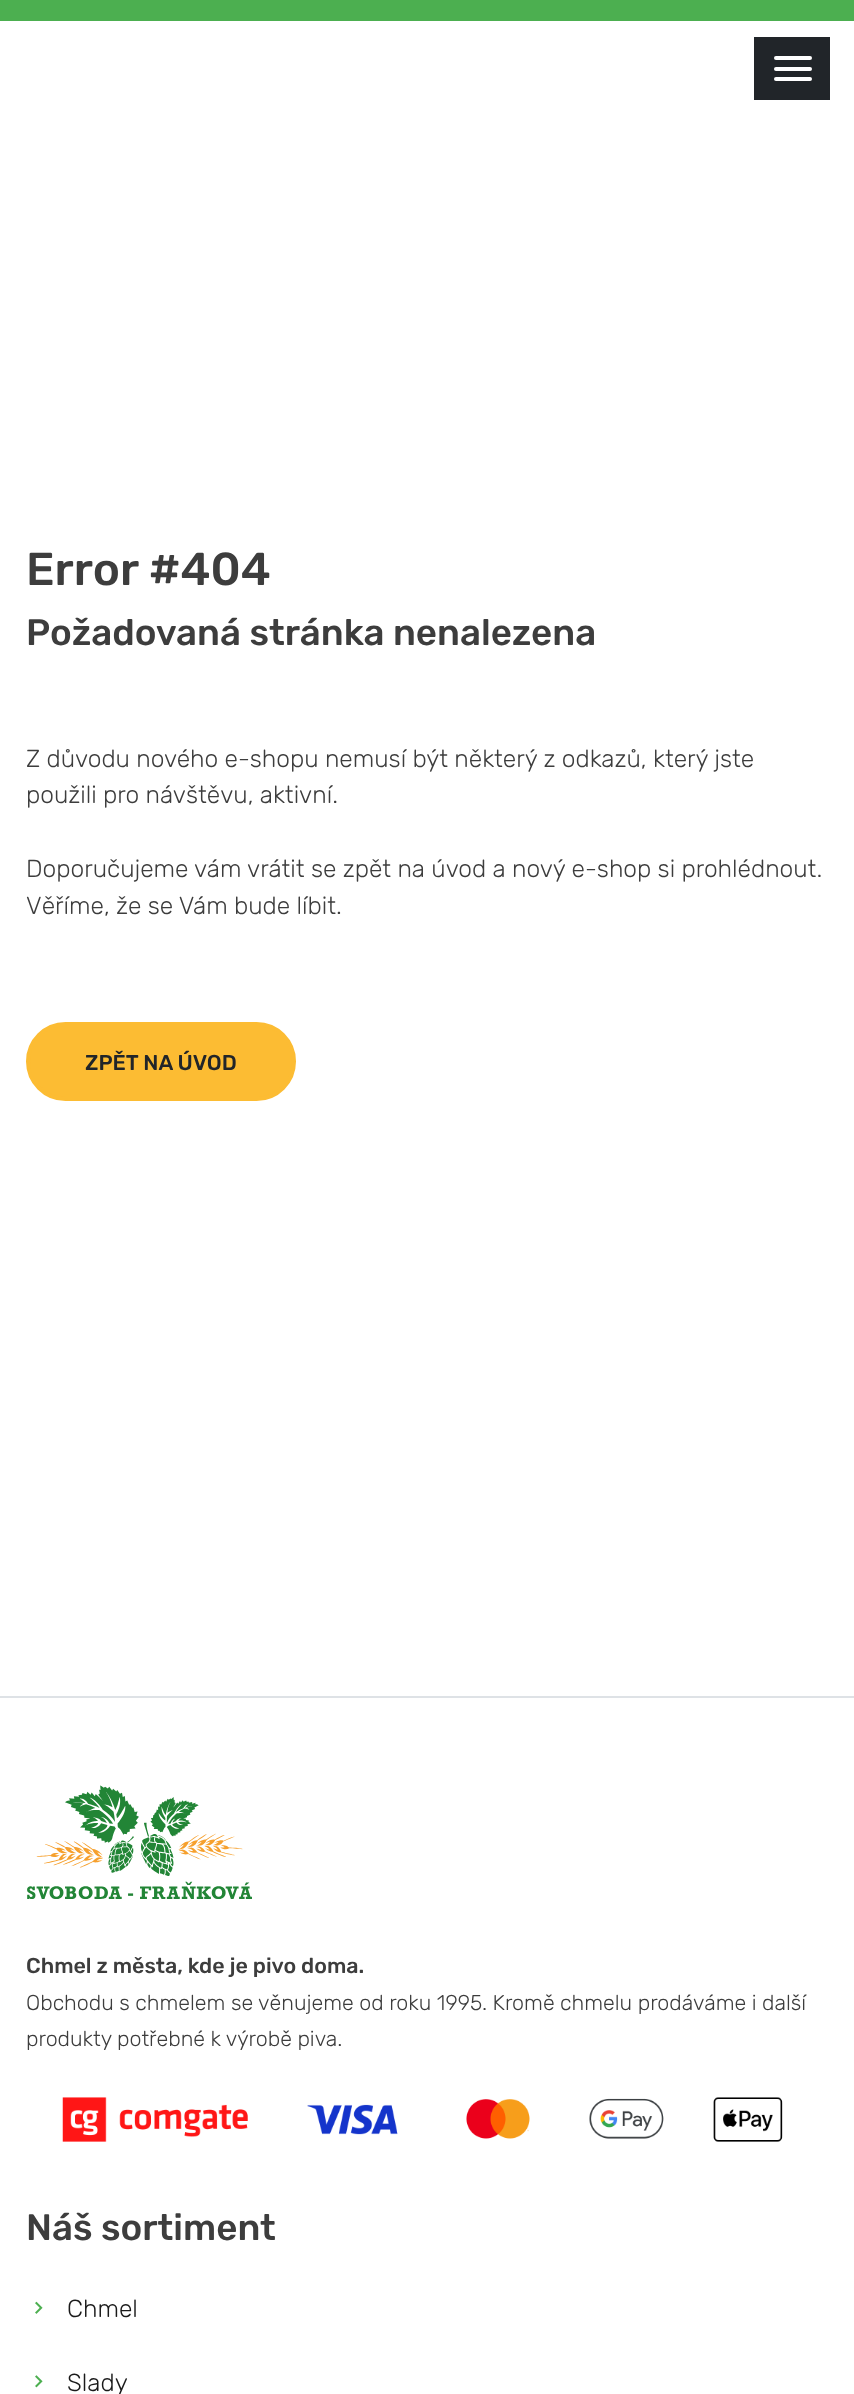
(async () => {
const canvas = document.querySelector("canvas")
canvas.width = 854
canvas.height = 2394
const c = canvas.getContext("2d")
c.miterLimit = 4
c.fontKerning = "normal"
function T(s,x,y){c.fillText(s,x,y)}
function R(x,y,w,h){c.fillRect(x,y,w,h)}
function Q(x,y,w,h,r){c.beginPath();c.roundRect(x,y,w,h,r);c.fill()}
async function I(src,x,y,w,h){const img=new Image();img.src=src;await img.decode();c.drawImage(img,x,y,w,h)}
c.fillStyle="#fff"
R(0,0,854,2394)
c.fillStyle="#4caf50"
R(0,0,854,21)
c.fillStyle="#212529"
R(754,37,76,63)
c.fillStyle="#fff"
Q(774,56,38,4,2)
Q(774,67,38,4,2)
Q(774,77,38,4,2)
c.font="500 46px Rubik"
c.fillStyle="#3d3d3d"
T("Error #404",26,585)
c.font="500 36.75px Rubik"
T("Požadovaná stránka nenalezena",26,645)
c.font="300 24.5px Rubik"
T("Z důvodu nového e-shopu nemusí být některý z odkazů, který jste",26,767)
T("použili pro návštěvu, aktivní.",26,803)
T("Doporučujeme vám vrátit se zpět na úvod a nový e-shop si prohlédnout.",26,877)
T("Věříme, že se Vám bude líbit.",26,914)
c.fillStyle="#fcbc33"
c.beginPath()
c.roundRect(28,1024,266,75,37.5)
c.fill()
c.strokeStyle="#fcbc33"
c.lineWidth=4
c.stroke()
c.font="500 21.45px Rubik"
c.fillStyle="#212529"
T("ZPĚT NA ÚVOD",85,1070)
c.fillStyle="#dee2e6"
R(0,1696,854,2)
await I("1.png",27,1785,225,114)
c.fillStyle="#3d3d3d"
T("Chmel z města, kde je pivo doma.",26,1973)
c.font="300 21.45px Rubik"
T("Obchodu s chmelem se věnujeme od roku 1995. Kromě chmelu prodáváme i další",26,2010)
T("produkty potřebné k výrobě piva.",26,2046)
await I("2.png",62,2097,721,45)
c.font="500 36.75px Rubik"
T("Náš sortiment",26,2240)
await I("3.png",35,2301,8,13)
c.font="300 24.5px Rubik"
c.fillStyle="#1a1a1a"
T("Chmel",67,2317)
await I("4.png",35,2375,8,13)
T("Slady",67,2391)
})()
